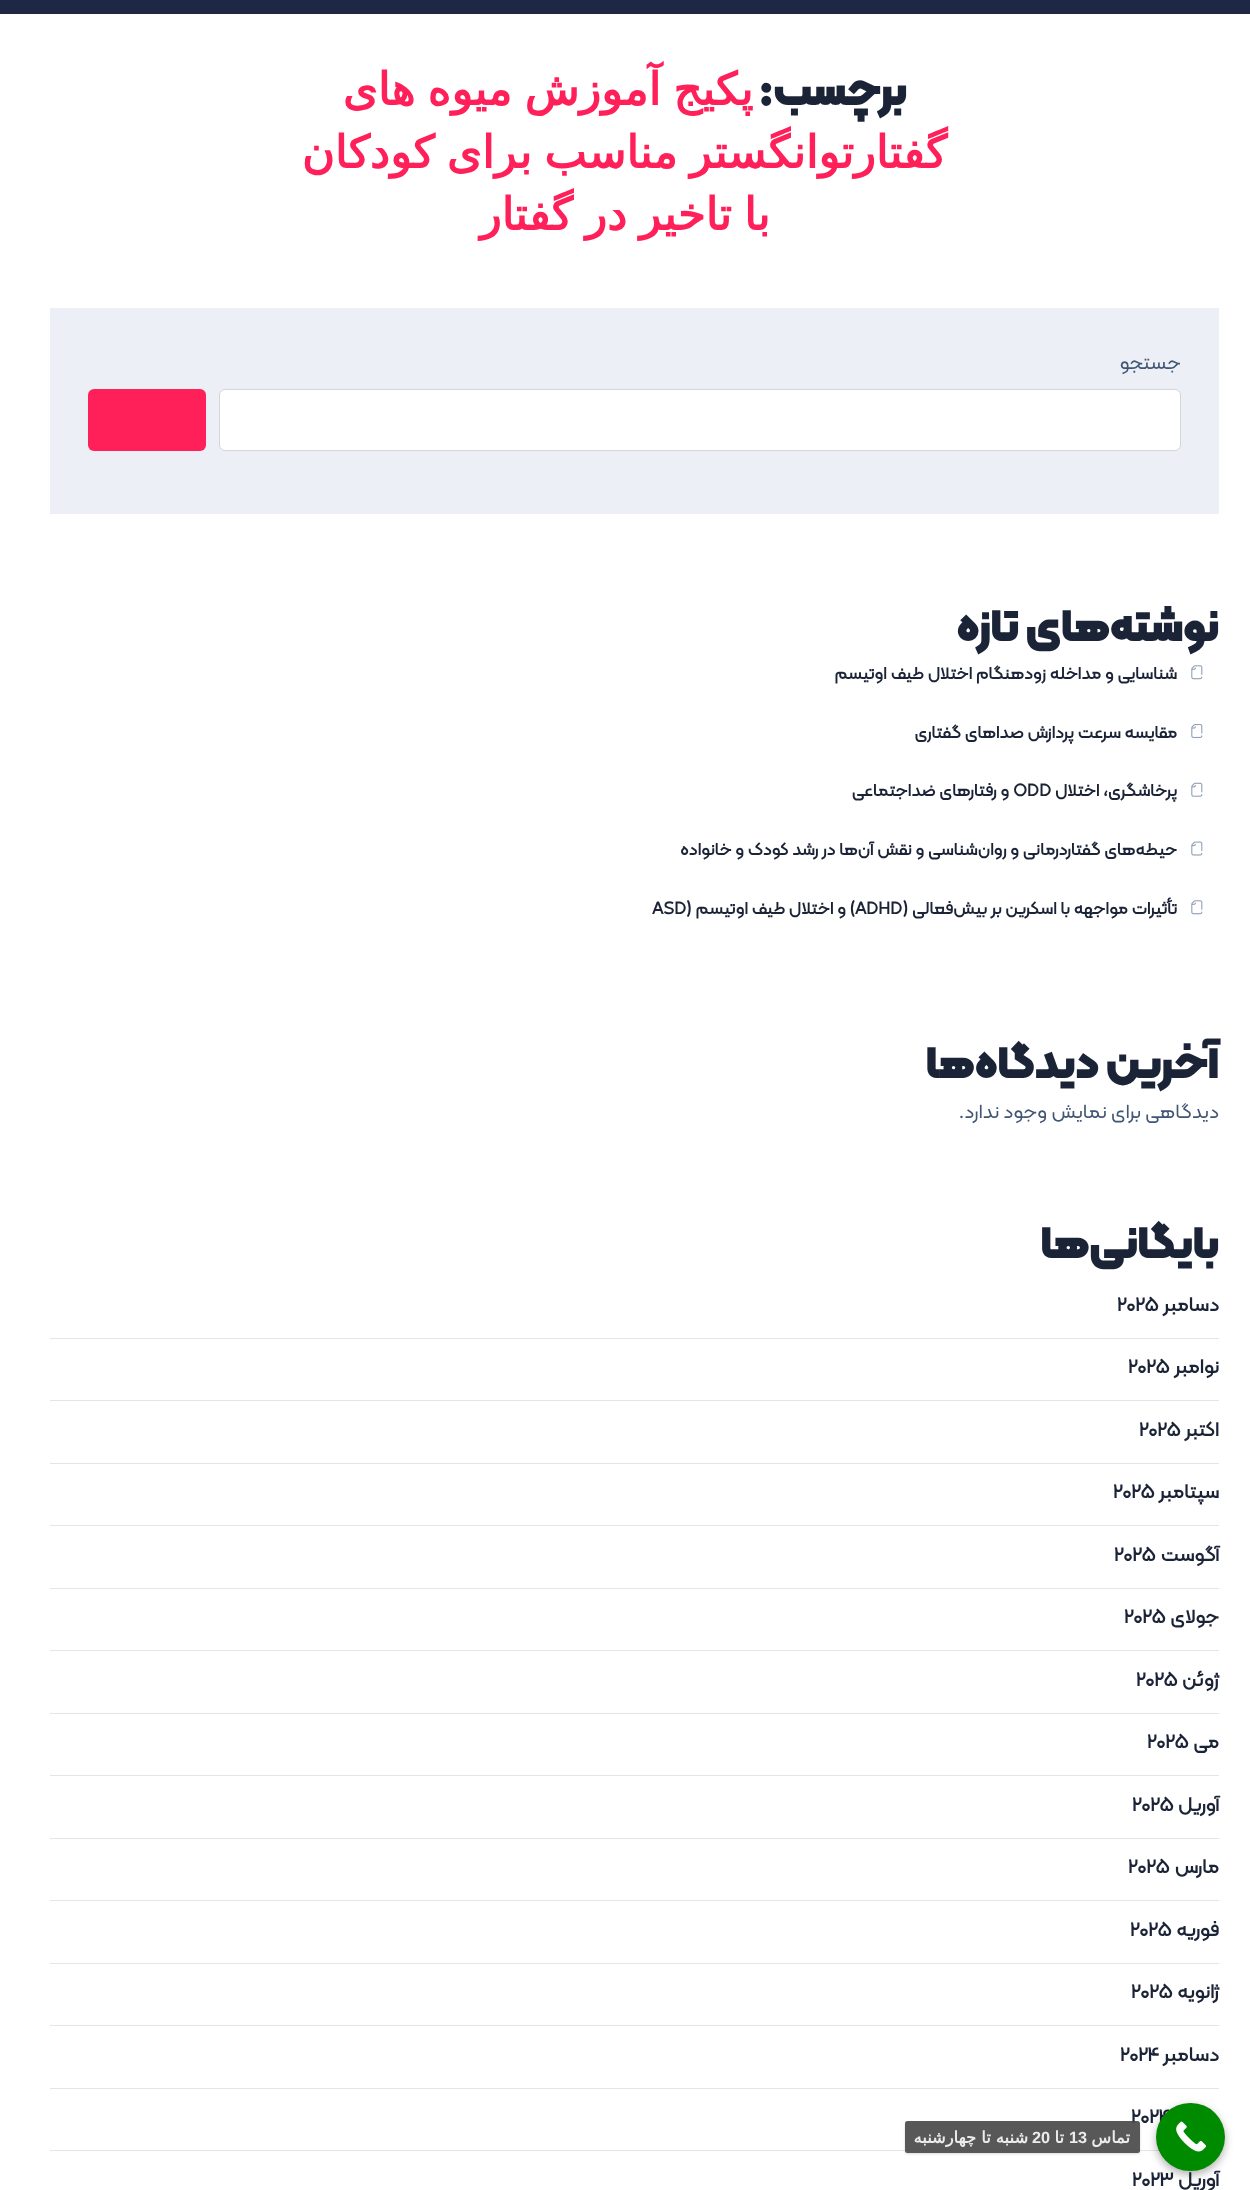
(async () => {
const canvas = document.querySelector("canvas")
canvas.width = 1250
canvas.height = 2190
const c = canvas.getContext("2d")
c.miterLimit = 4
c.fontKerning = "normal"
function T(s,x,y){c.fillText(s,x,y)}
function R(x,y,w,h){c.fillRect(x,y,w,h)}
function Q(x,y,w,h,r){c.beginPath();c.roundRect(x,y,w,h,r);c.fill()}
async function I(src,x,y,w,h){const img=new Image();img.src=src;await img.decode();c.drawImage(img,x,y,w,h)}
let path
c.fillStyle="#fff"
R(0,0,1250,2190)
c.fillStyle="#1e2845"
R(0,0,1250,14)
c.direction="rtl"
c.font="900 45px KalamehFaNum"
c.fillStyle="#1b2336"
T("برچسب:",907,105)
c.wordSpacing="-2px"
c.font="bold 45px DejaVu Sans"
c.fillStyle="#ff1f59"
T("پکیج آموزش میوه های",753,105)
T("گفتارتوانگستر مناسب برای کودکان",947,168)
T("با تاخیر در گفتار",770,230)
c.fillStyle="#edeff7"
R(50,308,1169,206)
c.wordSpacing="0px"
c.font="20px KalamehFaNum"
c.fillStyle="#415674"
T("جستجو",1181,369)
c.fillStyle="#fff"
c.beginPath()
c.roundRect(219.5,389.5,961,61,5.5)
c.fill()
c.strokeStyle="#d6d5d7"
c.stroke()
c.fillStyle="#ff1f59"
Q(88,389,118,62,6)
c.font="900 45px KalamehFaNum"
c.fillStyle="#1b2336"
T("نوشته‌های تازه",1219,641)
await I("1.png",1191,665,12,15)
c.font="bold 17.5px KalamehFaNum"
T("شناسایی و مداخله زودهنگام اختلال طیف اوتیسم",1177,679)
await I("2.png",1191,724,12,14)
T("مقایسه سرعت پردازش صداهای گفتاری",1177,738)
await I("3.png",1191,782,12,15)
T("پرخاشگری، اختلال",1177,796)
c.direction="ltr"
T("ODD",1013,796)
c.direction="rtl"
T("و رفتارهای ضد‌اجتماعی",1009,796)
await I("4.png",1191,841,12,15)
T("حیطه‌های گفتاردرمانی و روان‌شناسی و نقش آن‌ها در رشد کودک و خانواده",1177,855)
await I("1.png",1191,900,12,15)
T("تأثیرات مواجهه با اسکرین بر بیش‌فعالی (",1177,914)
c.direction="ltr"
T("ADHD",855,914)
c.direction="rtl"
T(") و اختلال طیف اوتیسم (",855,914)
c.direction="ltr"
T("ASD",652,914)
c.direction="rtl"
c.font="900 45px KalamehFaNum"
T("آخرین دیدگاه‌ها",1219,1078)
c.font="20px KalamehFaNum"
c.fillStyle="#415674"
T("دیدگاهی برای نمایش وجود ندارد.",1219,1118)
c.font="900 45px KalamehFaNum"
c.fillStyle="#1b2336"
T("بایگانی‌ها",1219,1258)
c.fillStyle="#e5e5e5"
R(50,1338,1169,1)
c.font="bold 20px KalamehFaNum"
c.fillStyle="#1b2336"
T("دسامبر",1219,1311)
c.direction="ltr"
T("2025",1117,1311)
c.fillStyle="#e5e5e5"
R(50,1400,1169,1)
c.direction="rtl"
c.fillStyle="#1b2336"
T("نوامبر",1219,1373)
c.direction="ltr"
T("2025",1128,1373)
c.fillStyle="#e5e5e5"
R(50,1463,1169,1)
c.direction="rtl"
c.fillStyle="#1b2336"
T("اکتبر",1219,1436)
c.direction="ltr"
T("2025",1139,1436)
c.fillStyle="#e5e5e5"
R(50,1525,1169,1)
c.direction="rtl"
c.fillStyle="#1b2336"
T("سپتامبر",1219,1498)
c.direction="ltr"
T("2025",1113,1498)
c.fillStyle="#e5e5e5"
R(50,1588,1169,1)
c.direction="rtl"
c.fillStyle="#1b2336"
T("آگوست",1219,1561)
c.direction="ltr"
T("2025",1114,1561)
c.fillStyle="#e5e5e5"
R(50,1650,1169,1)
c.direction="rtl"
c.fillStyle="#1b2336"
T("جولای",1219,1623)
c.direction="ltr"
T("2025",1124,1623)
c.fillStyle="#e5e5e5"
R(50,1713,1169,1)
c.direction="rtl"
c.fillStyle="#1b2336"
T("ژوئن",1219,1686)
c.direction="ltr"
T("2025",1136,1686)
c.fillStyle="#e5e5e5"
R(50,1775,1169,1)
c.direction="rtl"
c.fillStyle="#1b2336"
T("می",1219,1748)
c.direction="ltr"
T("2025",1147,1748)
c.fillStyle="#e5e5e5"
R(50,1838,1169,1)
c.direction="rtl"
c.fillStyle="#1b2336"
T("آوریل",1219,1811)
c.direction="ltr"
T("2025",1132,1811)
c.fillStyle="#e5e5e5"
R(50,1900,1169,1)
c.direction="rtl"
c.fillStyle="#1b2336"
T("مارس",1219,1873)
c.direction="ltr"
T("2025",1128,1873)
c.fillStyle="#e5e5e5"
R(50,1963,1169,1)
c.direction="rtl"
c.fillStyle="#1b2336"
T("فوریه",1219,1936)
c.direction="ltr"
T("2025",1130,1936)
c.fillStyle="#e5e5e5"
R(50,2025,1169,1)
c.direction="rtl"
c.fillStyle="#1b2336"
T("ژانویه",1219,1998)
c.direction="ltr"
T("2025",1131,1998)
c.fillStyle="#e5e5e5"
R(50,2088,1169,1)
c.direction="rtl"
c.fillStyle="#1b2336"
T("دسامبر",1219,2061)
c.direction="ltr"
T("2024",1120,2061)
c.fillStyle="#e5e5e5"
R(50,2150,1109,1)
c.fillStyle="#1b2336"
T("2024",1131,2123)
c.direction="rtl"
T("آوریل",1219,2186)
c.direction="ltr"
T("2023",1132,2186)
c.fillStyle="#0000004d"
c.filter="blur(4px)"
c.beginPath()
c.roundRect(1156,2106,69,69,34.5)
c.fill()
c.filter="none"
c.fillStyle="#008a00"
Q(1156,2103,69,68,34)
await I("5.png",1176,2121,31,31)
c.save()
path = new Path2D("M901 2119h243v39h-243zm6.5 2h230c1.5 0 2.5 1 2.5 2.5v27c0 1.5-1 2.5-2.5 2.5h-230c-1.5 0-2.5-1-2.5-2.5v-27c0-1.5 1-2.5 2.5-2.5z")
c.clip(path,"evenodd")
c.fillStyle="#00000026"
c.filter="blur(1px)"
c.beginPath()
c.roundRect(905,2123,235,31,2.5)
c.fill()
c.filter="none"
c.restore()
c.fillStyle="#464646e6"
Q(905,2121,235,32,2.5)
c.direction="rtl"
c.font="bold 16.25px DejaVu Sans"
c.fillStyle="#ececec"
T("تماس",1130,2143)
c.direction="ltr"
c.font="bold 16.25px Liberation Sans"
T("13",1069,2143)
c.direction="rtl"
c.font="bold 16.25px DejaVu Sans"
T("تا",1064,2143)
c.direction="ltr"
c.font="bold 16.25px Liberation Sans"
T("20",1032,2143)
c.direction="rtl"
c.font="bold 16.25px DejaVu Sans"
T("شنبه تا چهارشنبه",1028,2143)
})()
